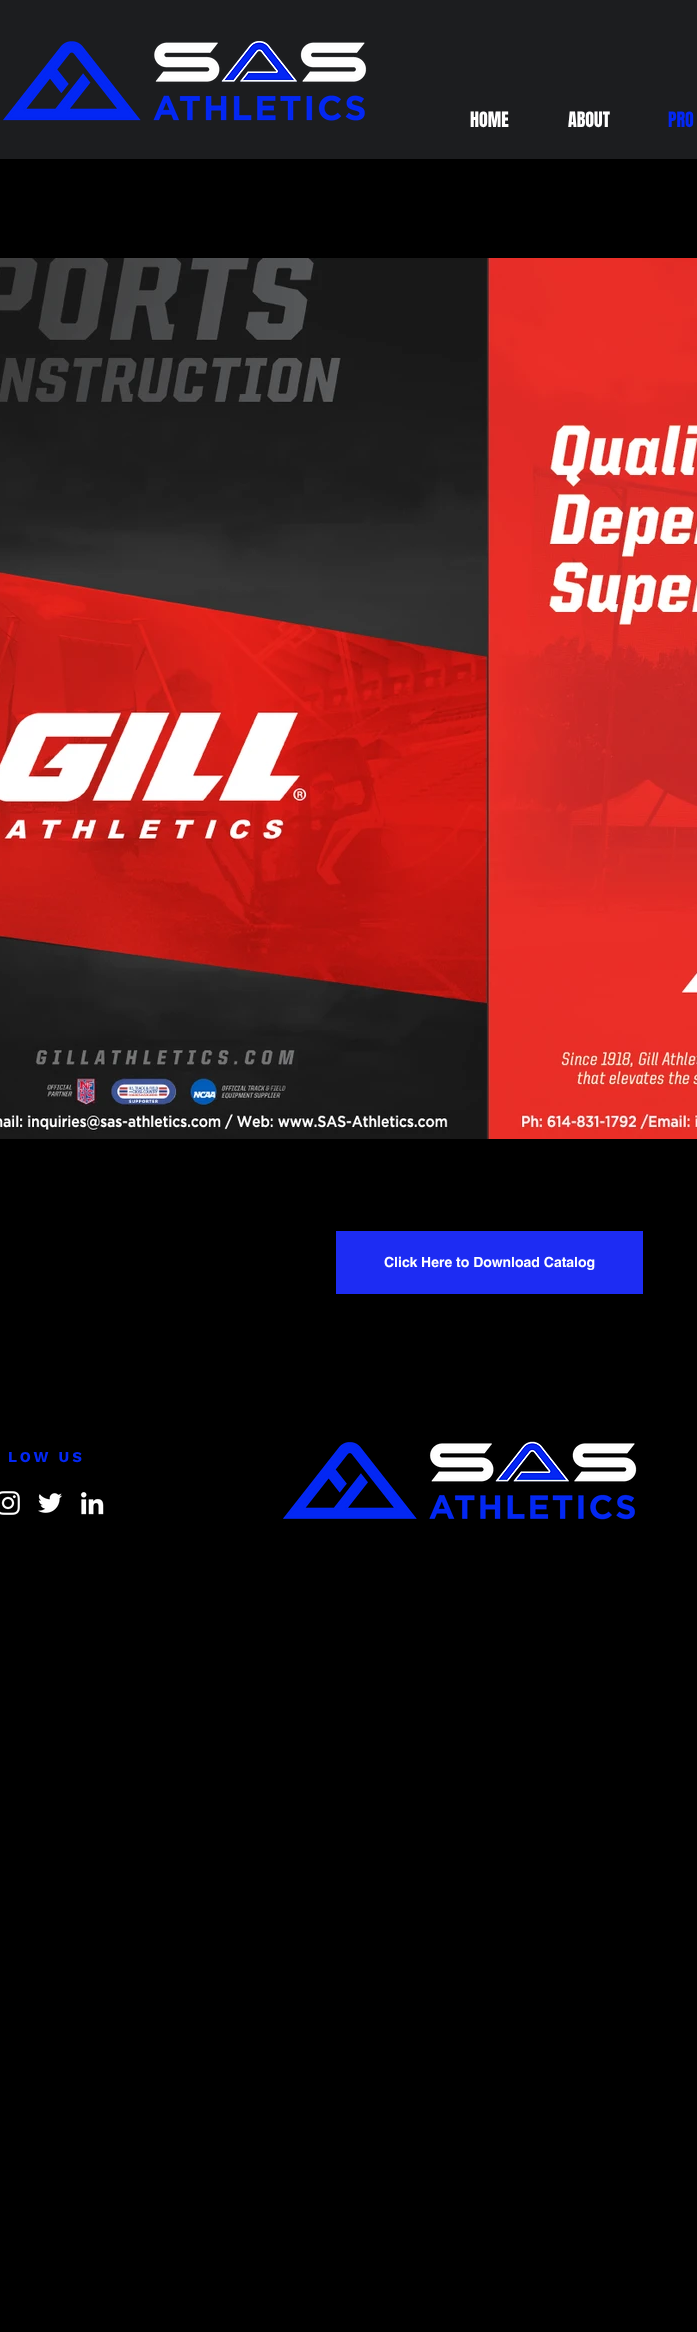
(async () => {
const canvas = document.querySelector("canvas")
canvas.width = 697
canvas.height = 2332
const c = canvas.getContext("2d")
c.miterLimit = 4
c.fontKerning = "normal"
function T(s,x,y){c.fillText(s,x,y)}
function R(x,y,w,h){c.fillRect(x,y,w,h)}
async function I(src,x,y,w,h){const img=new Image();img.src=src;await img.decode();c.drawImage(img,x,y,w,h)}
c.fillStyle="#000"
R(0,0,697,2332)
c.fillStyle="#1c1d1f"
R(0,0,697,159)
await I("1.png",3,41,364,80)
c.font="18px Anton"
c.fillStyle="#fff"
T("HOME",470,127)
T("ABOUT",568,127)
c.fillStyle="#0327f4"
T("PRO",668,127)
await I("2.png",0,258,697,881)
c.fillStyle="#1d2cf3"
R(336,1231,307,63)
c.font="bold 14px helvetica"
c.fillStyle="#fff"
T("Click Here to Download Catalog",384,1267)
c.letterSpacing="3px"
c.font="bold 15px Work Sans"
c.fillStyle="#0327f4"
T("LOW US",8,1462)
await I("3.png",283,1441,354,79)
await I("4.png",0,1491,20,24)
await I("5.png",38,1493,25,20)
await I("6.png",80,1492,24,23)
})()
